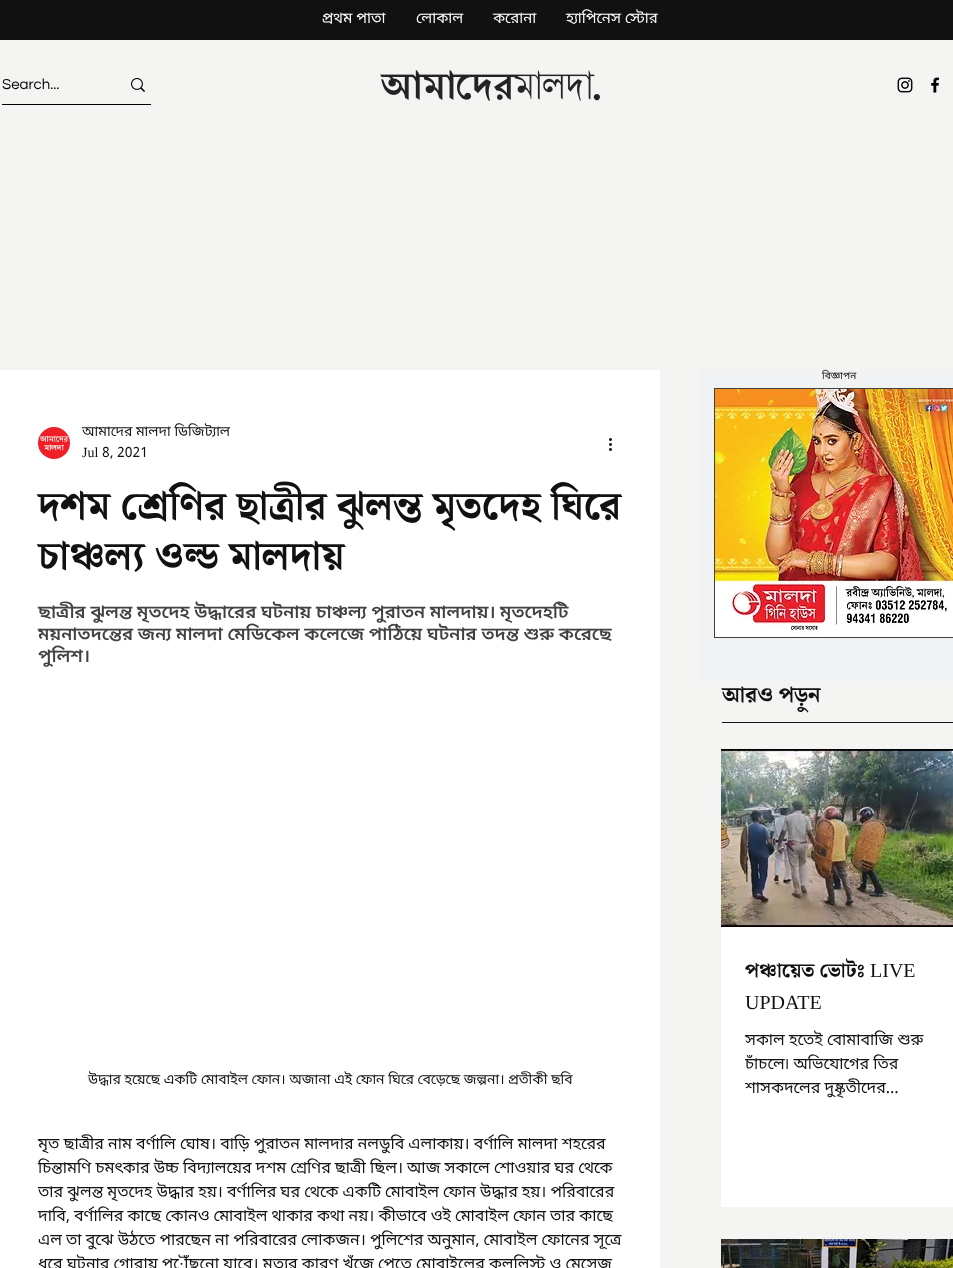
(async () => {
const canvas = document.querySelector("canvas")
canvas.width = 953
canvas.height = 1268
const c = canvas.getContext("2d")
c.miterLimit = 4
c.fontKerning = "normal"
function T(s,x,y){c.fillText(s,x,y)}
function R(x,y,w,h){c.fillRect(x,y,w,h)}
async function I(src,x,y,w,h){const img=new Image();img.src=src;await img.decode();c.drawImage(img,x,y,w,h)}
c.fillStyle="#f4f4f2"
R(0,0,953,1268)
c.fillStyle="#111"
R(0,0,953,40)
c.font="15px Noto Sans Bengali"
c.fillStyle="#fff"
T("প্রথম পাতা",322,23)
T("লোকাল",416,23)
T("করোনা",493,23)
T("হ্যাপিনেস স্টোর",566,23)
c.fillStyle="#000"
R(2,104,149,1)
c.font="15px Questrial"
T("Search...",2,89)
await I("1.png",131,78,14,14)
await I("2.png",380,70,220,31)
await I("3.png",897,77,16,16)
await I("4.png",931,77,9,16)
c.fillStyle="#f1f2f4"
R(699,370,254,311)
c.font="10px Noto Sans Bengali"
c.fillStyle="#111"
T("বিজ্ঞাপন",822,379)
c.fillStyle="#414141"
R(714,388,239,250)
await I("5.png",715,389,238,248)
c.fillStyle="#fff"
R(0,370,660,898)
await I("6.png",38,427,32,32)
c.font="14px Noto Sans Bengali"
c.fillStyle="#111"
T("আমাদের মালদা ডিজিট্যাল",82,436)
c.font="14px Liberation Serif"
T("Jul",82,457)
c.font="14px Noto Sans Bengali"
T("8, 2021",102,457)
await I("7.png",609,438,3,13)
c.font="bold 40px Noto Serif Bengali"
T("দশম শ্রেণির ছাত্রীর ঝুলন্ত মৃতদেহ ঘিরে",38,519)
T("চাঞ্চল্য ওল্ড মালদায়",38,569)
c.font="600 18px Noto Sans Bengali"
c.fillStyle="#414141"
T("ছাত্রীর ঝুলন্ত মৃতদেহ উদ্ধারের ঘটনায় চাঞ্চল্য পুরাতন মালদায়। মৃতদেহটি",38,618)
T("ময়নাতদন্তের জন্য মালদা মেডিকেল কলেজে পাঠিয়ে ঘটনার তদন্ত শুরু করেছে",38,640)
T("পুলিশ।",38,662)
c.font="14px Noto Sans Bengali"
c.fillStyle="#111"
T("উদ্ধার হয়েছে একটি মোবাইল ফোন। অজানা এই ফোন ঘিরে বেড়েছে জল্পনা। প্রতীকী ছবি",88,1084)
c.font="16px Noto Sans Bengali"
T("মৃত ছাত্রীর নাম বর্ণালি ঘোষ। বাড়ি পুরাতন মালদার নলডুবি এলাকায়। বর্ণালি মালদা শহরের",38,1149)
T("চিন্তামণি চমৎকার উচ্চ বিদ্যালয়ের দশম শ্রেণির ছাত্রী ছিল। আজ সকালে শোওয়ার ঘর থেকে",38,1173)
T("তার ঝুলন্ত মৃতদেহ উদ্ধার হয়। বর্ণালির ঘর থেকে একটি মোবাইল ফোন উদ্ধার হয়। পরিবারের",38,1197)
T("দাবি, বর্ণালির কাছে কোনও মোবাইল থাকার কথা নয়। কীভাবে ওই মোবাইল ফোন তার কাছে",38,1221)
T("এল তা বুঝে উঠতে পারছেন না পরিবারের লোকজন। পুলিশের অনুমান, মোবাইল ফোনের সূত্রে",38,1245)
T("ধরে ঘটনার গোরায় পৌঁছনো যাবে। মৃত্যুর কারণ খুঁজে পেতে মোবাইলের কললিস্ট ও মেসেজ",38,1269)
c.font="bold 22px Noto Serif Bengali"
T("আরও পড়ুন",722,702)
R(722,722,231,1)
await I("8.png",721,749,232,178)
c.fillStyle="#fff"
R(721,927,232,280)
c.font="bold 20px Noto Serif Bengali"
c.fillStyle="#111"
T("পঞ্চায়েত ভোটঃ",745,977)
c.font="20px Liberation Serif"
T("LIVE",870,977)
T("UPDATE",745,1009)
c.font="16px Noto Sans Bengali"
T("সকাল হতেই বোমাবাজি শুরু",745,1045)
c.save()
c.beginPath()
c.rect(745,1029,189,72)
c.clip()
T("চাঁচলে৷ অভিযোগের তির",745,1069)
c.restore()
T("শাসকদলের দুষ্কৃতীদের…",745,1093)
await I("9.png",721,1239,232,29)
})()
